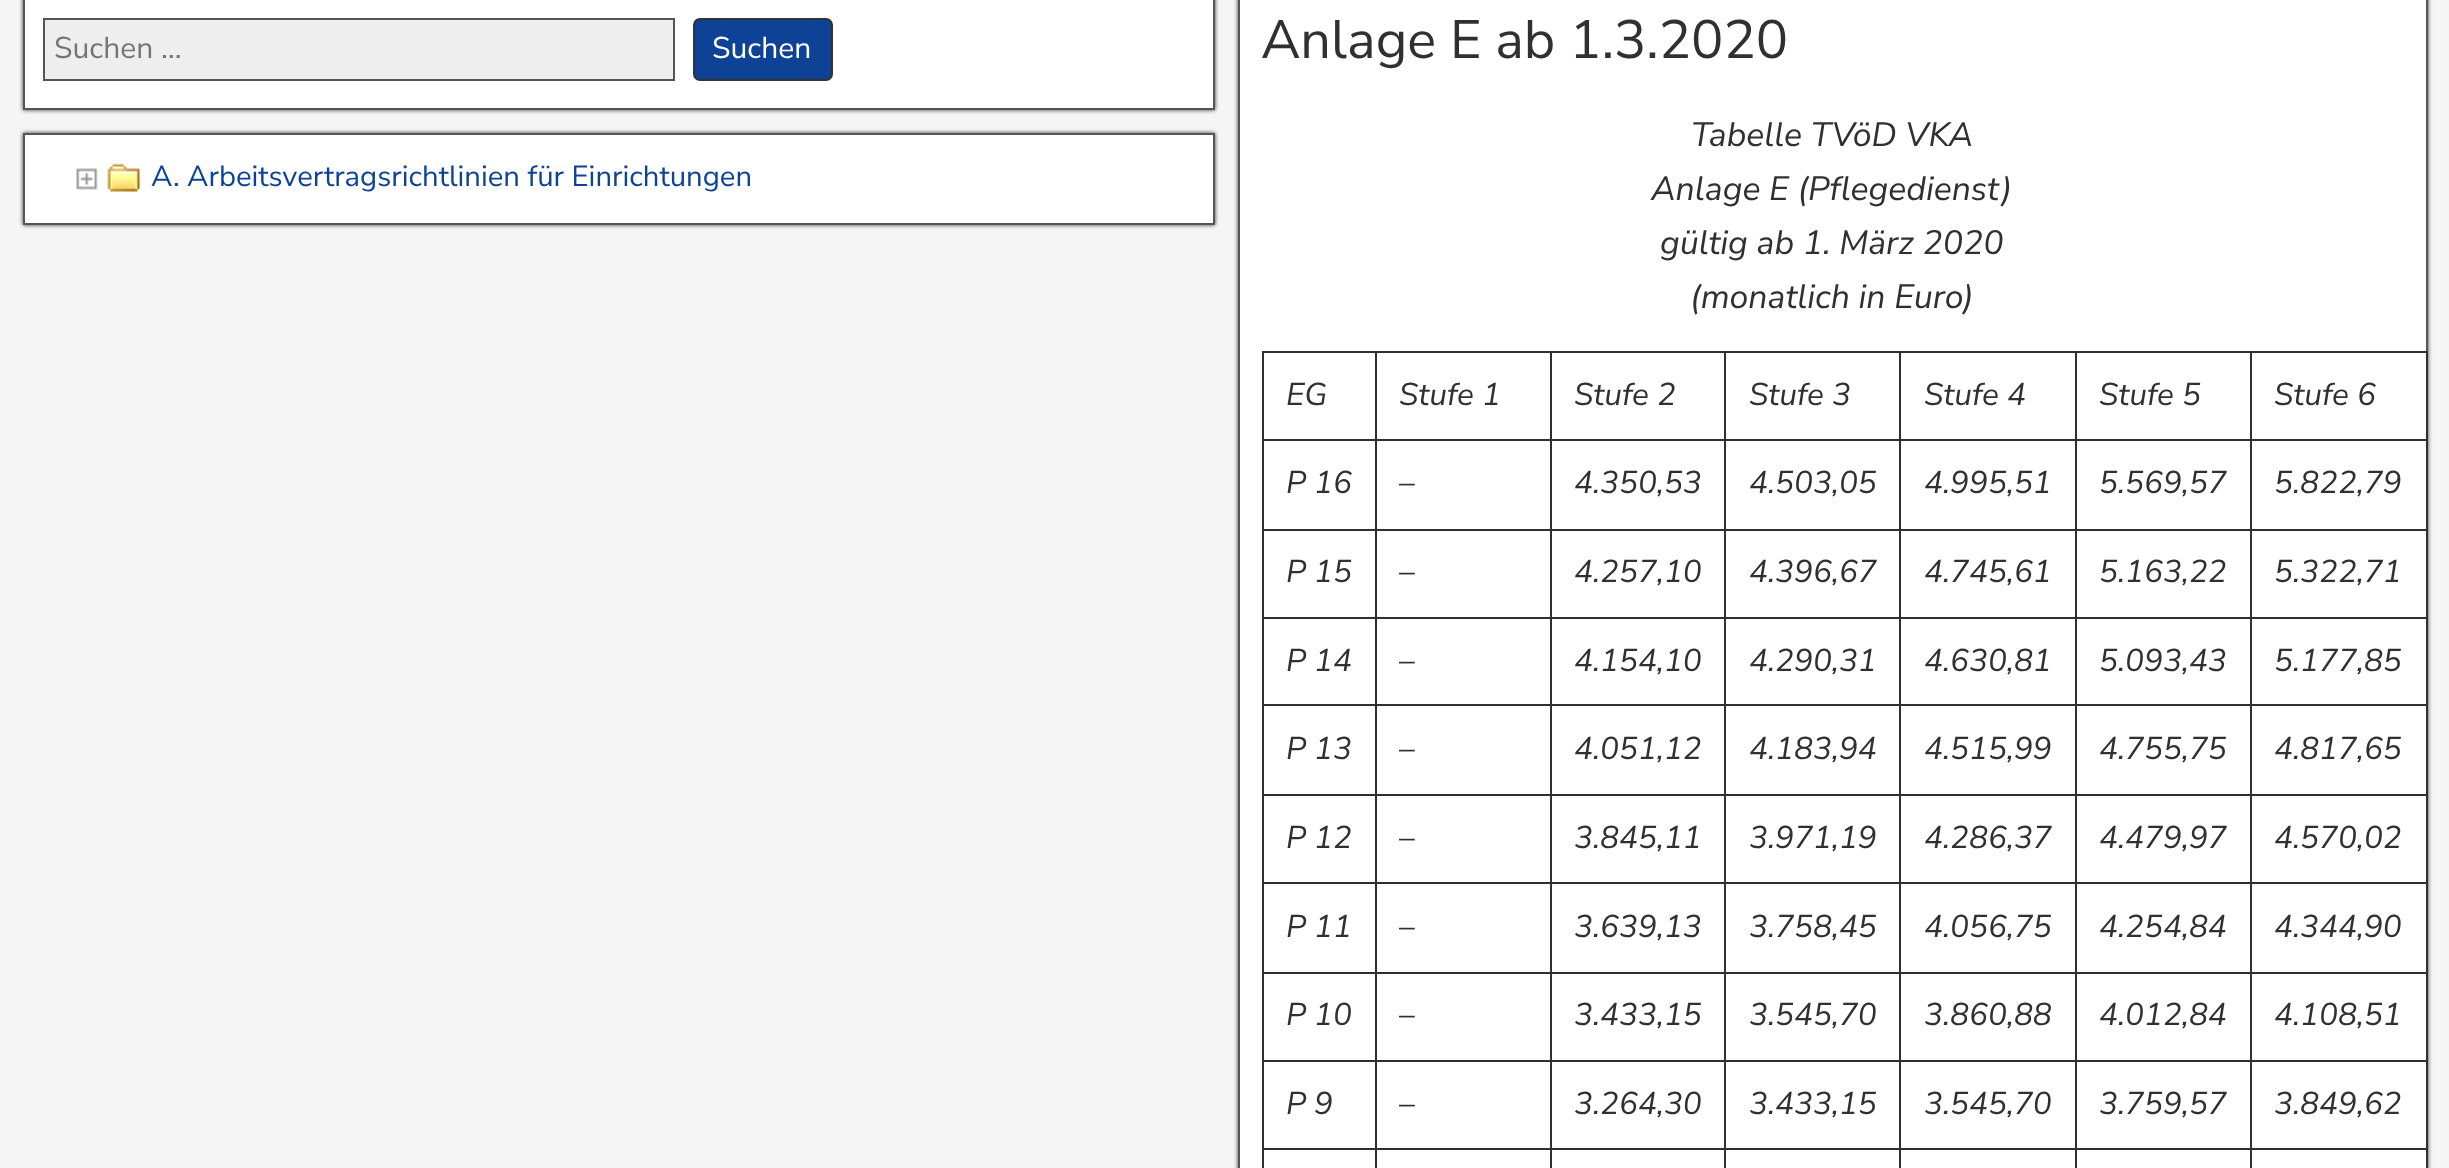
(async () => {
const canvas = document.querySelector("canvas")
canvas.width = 2449
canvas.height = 1168
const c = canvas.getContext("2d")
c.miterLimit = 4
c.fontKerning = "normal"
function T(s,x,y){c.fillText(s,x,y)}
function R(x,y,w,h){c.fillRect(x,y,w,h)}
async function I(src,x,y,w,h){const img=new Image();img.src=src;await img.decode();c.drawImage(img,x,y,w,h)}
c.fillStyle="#f5f5f5"
R(0,0,2449,1168)
c.fillStyle="#333"
c.filter="blur(2px)"
c.beginPath()
c.rect(23,-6,1192,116)
c.fill()
c.filter="none"
c.fillStyle="#fff"
c.beginPath()
c.rect(24,-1,1190,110)
c.fill()
c.strokeStyle="#555"
c.lineWidth=2
c.stroke()
c.fillStyle="#eee"
c.beginPath()
c.rect(44,19,630,61)
c.fill()
c.stroke()
c.font="30px Nunito Sans"
c.fillStyle="#757575"
T("Suchen …",54,58)
c.fillStyle="#0e4296"
c.beginPath()
c.roundRect(694,19,138,61,6)
c.fill()
c.strokeStyle="#333"
c.stroke()
c.fillStyle="#fff"
T("Suchen",712,58)
c.fillStyle="#333"
c.filter="blur(2px)"
c.beginPath()
c.rect(23,133,1192,92)
c.fill()
c.filter="none"
c.fillStyle="#fff"
c.beginPath()
c.rect(24,134,1190,90)
c.fill()
c.strokeStyle="#555"
c.stroke()
await I("1.png",76,163,65,29)
c.font="29.25px Nunito Sans"
c.fillStyle="#0e4296"
T("A. Arbeitsvertragsrichtlinien für Einrichtungen",151,186)
c.fillStyle="#333"
c.filter="blur(2px)"
c.beginPath()
c.rect(1238,-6,1190,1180)
c.fill()
c.filter="none"
c.fillStyle="#fff"
c.beginPath()
c.rect(1239,-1,1188,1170)
c.fill()
c.stroke()
c.font="54px Nunito Sans"
c.fillStyle="#303030"
T("Anlage E ab 1.3.2020",1261,58)
c.font="italic 33.75px Nunito Sans"
T("Tabelle TVöD VKA",1691,146)
T("Anlage E (Pflegedienst)",1651,200)
T("gültig ab 1. März 2020",1660,254)
T("(monatlich in Euro)",1690,308)
R(2250,351,178,2)
R(2250,439,178,2)
R(2250,529,178,2)
R(2250,617,178,2)
R(2250,704,178,2)
R(2250,794,178,2)
R(2250,882,178,2)
R(2250,972,178,2)
R(2250,1060,178,2)
R(2250,1148,178,2)
R(2250,1148,2,20)
R(2075,1148,177,2)
R(2250,1060,2,90)
R(2075,1060,177,2)
R(2250,972,2,90)
R(2075,972,177,2)
R(2250,882,2,92)
R(2075,882,177,2)
R(2250,794,2,90)
R(2075,794,177,2)
R(2250,704,2,93)
R(2075,704,177,2)
R(2250,617,2,90)
R(2075,617,177,2)
R(2250,529,2,90)
R(2075,529,177,2)
R(2250,439,2,92)
R(2075,439,177,2)
R(2250,351,2,90)
R(2075,351,177,2)
R(2075,1148,2,20)
R(1899,1148,178,2)
R(2075,1060,2,90)
R(1899,1060,178,2)
R(2075,972,2,90)
R(1899,972,178,2)
R(2075,882,2,92)
R(1899,882,178,2)
R(2075,794,2,90)
R(1899,794,178,2)
R(2075,704,2,93)
R(1899,704,178,2)
R(2075,617,2,90)
R(1899,617,178,2)
R(2075,529,2,90)
R(1899,529,178,2)
R(2075,439,2,92)
R(1899,439,178,2)
R(2075,351,2,90)
R(1899,351,178,2)
R(1899,1148,2,20)
R(1724,1148,177,2)
R(1899,1060,2,90)
R(1724,1060,177,2)
R(1899,972,2,90)
R(1724,972,177,2)
R(1899,882,2,92)
R(1724,882,177,2)
R(1899,794,2,90)
R(1724,794,177,2)
R(1899,704,2,93)
R(1724,704,177,2)
R(1899,617,2,90)
R(1724,617,177,2)
R(1899,529,2,90)
R(1724,529,177,2)
R(1899,439,2,92)
R(1724,439,177,2)
R(1899,351,2,90)
R(1724,351,177,2)
R(1724,1148,2,20)
R(1550,1148,176,2)
R(1724,1060,2,90)
R(1550,1060,176,2)
R(1724,972,2,90)
R(1550,972,176,2)
R(1724,882,2,92)
R(1550,882,176,2)
R(1724,794,2,90)
R(1550,794,176,2)
R(1724,704,2,93)
R(1550,704,176,2)
R(1724,617,2,90)
R(1550,617,176,2)
R(1724,529,2,90)
R(1550,529,176,2)
R(1724,439,2,92)
R(1550,439,176,2)
R(1724,351,2,90)
R(1550,351,176,2)
R(1550,1148,2,20)
R(1375,1148,178,2)
R(1550,1060,2,90)
R(1375,1060,178,2)
R(1550,972,2,90)
R(1375,972,178,2)
R(1550,882,2,92)
R(1375,882,178,2)
R(1550,794,2,90)
R(1375,794,178,2)
R(1550,704,2,93)
R(1375,704,178,2)
R(1550,617,2,90)
R(1375,617,178,2)
R(1550,529,2,90)
R(1375,529,178,2)
R(1550,439,2,92)
R(1375,439,178,2)
R(1550,351,2,90)
R(1375,351,178,2)
R(1375,1148,2,20)
R(1262,1148,115,2)
R(1375,1060,2,90)
R(1262,1060,115,2)
R(1375,972,2,90)
R(1262,972,115,2)
R(1375,882,2,92)
R(1262,882,115,2)
R(1375,794,2,90)
R(1262,794,115,2)
R(1375,704,2,93)
R(1262,704,115,2)
R(1375,617,2,90)
R(1262,617,115,2)
R(1375,529,2,90)
R(1262,529,115,2)
R(1375,439,2,92)
R(1262,439,115,2)
R(1375,351,2,90)
R(1262,351,115,2)
R(1262,1148,2,20)
R(1262,1060,2,90)
R(1262,972,2,90)
R(1262,882,2,92)
R(1262,794,2,90)
R(1262,704,2,93)
R(1262,617,2,90)
R(1262,529,2,90)
R(1262,439,2,92)
R(1262,351,2,90)
c.font="italic 31.5px Nunito Sans"
T("EG",1286,405)
T("Stufe 1",1399,405)
T("Stufe 2",1574,405)
T("Stufe 3",1749,405)
T("Stufe 4",1924,405)
T("Stufe 5",2099,405)
R(2426,1148,2,20)
R(2426,1060,2,90)
R(2426,972,2,90)
R(2426,882,2,92)
R(2426,794,2,90)
R(2426,704,2,93)
R(2426,617,2,90)
R(2426,529,2,90)
R(2426,439,2,92)
R(2426,351,2,90)
T("Stufe 6",2274,405)
T("P 16",1286,493)
c.font="31.5px Nunito Sans"
T("–",1399,493)
c.font="italic 31.5px Nunito Sans"
T("4.350,53",1574,493)
T("4.503,05",1749,493)
T("4.995,51",1924,493)
T("5.569,57",2099,493)
T("5.822,79",2274,493)
T("P 15",1286,582)
c.font="31.5px Nunito Sans"
T("–",1399,582)
c.font="italic 31.5px Nunito Sans"
T("4.257,10",1574,582)
T("4.396,67",1749,582)
T("4.745,61",1924,582)
T("5.163,22",2099,582)
T("5.322,71",2274,582)
T("P 14",1286,671)
c.font="31.5px Nunito Sans"
T("–",1399,671)
c.font="italic 31.5px Nunito Sans"
T("4.154,10",1574,671)
T("4.290,31",1749,671)
T("4.630,81",1924,671)
T("5.093,43",2099,671)
T("5.177,85",2274,671)
T("P 13",1286,759)
c.font="31.5px Nunito Sans"
T("–",1399,759)
c.font="italic 31.5px Nunito Sans"
T("4.051,12",1574,759)
T("4.183,94",1749,759)
T("4.515,99",1924,759)
T("4.755,75",2099,759)
T("4.817,65",2274,759)
T("P 12",1286,848)
c.font="31.5px Nunito Sans"
T("–",1399,848)
c.font="italic 31.5px Nunito Sans"
T("3.845,11",1574,848)
T("3.971,19",1749,848)
T("4.286,37",1924,848)
T("4.479,97",2099,848)
T("4.570,02",2274,848)
T("P 11",1286,937)
c.font="31.5px Nunito Sans"
T("–",1399,937)
c.font="italic 31.5px Nunito Sans"
T("3.639,13",1574,937)
T("3.758,45",1749,937)
T("4.056,75",1924,937)
T("4.254,84",2099,937)
T("4.344,90",2274,937)
T("P 10",1286,1025)
c.font="31.5px Nunito Sans"
T("–",1399,1025)
c.font="italic 31.5px Nunito Sans"
T("3.433,15",1574,1025)
T("3.545,70",1749,1025)
T("3.860,88",1924,1025)
T("4.012,84",2099,1025)
T("4.108,51",2274,1025)
T("P 9",1286,1114)
c.font="31.5px Nunito Sans"
T("–",1399,1114)
c.font="italic 31.5px Nunito Sans"
T("3.264,30",1574,1114)
T("3.433,15",1749,1114)
T("3.545,70",1924,1114)
T("3.759,57",2099,1114)
T("3.849,62",2274,1114)
})()
